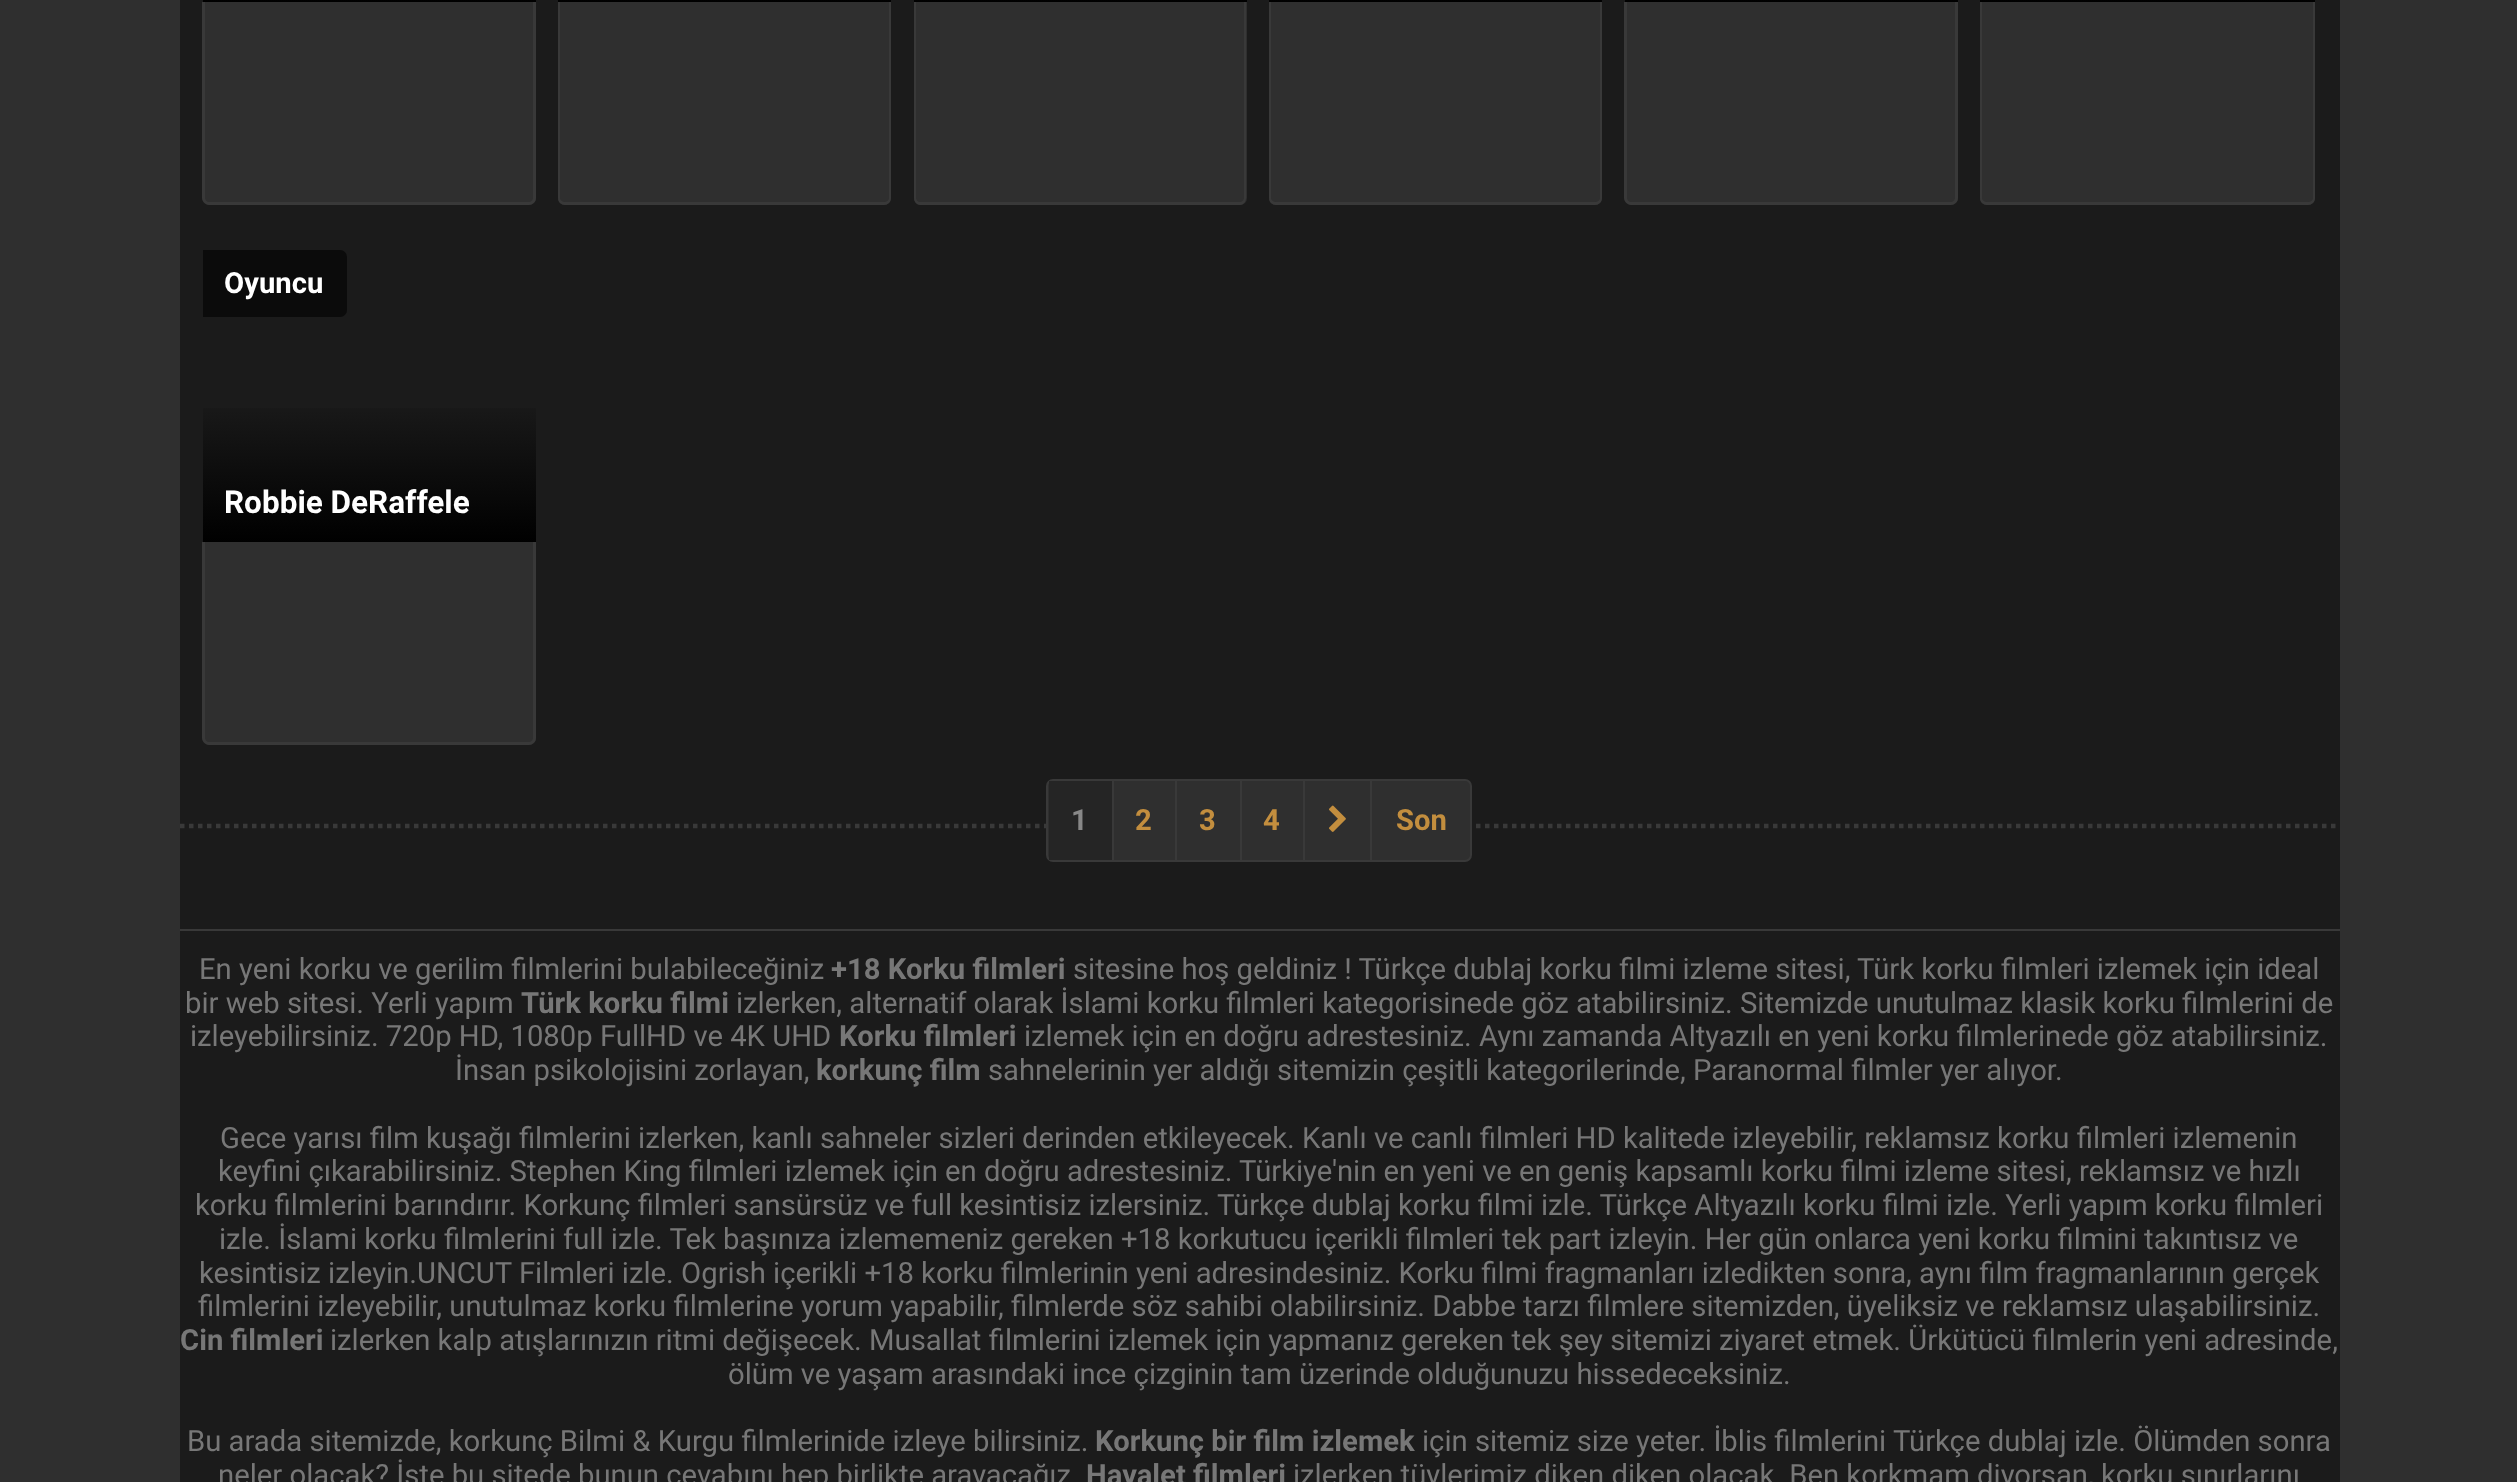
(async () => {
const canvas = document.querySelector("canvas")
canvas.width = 2517
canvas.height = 1482
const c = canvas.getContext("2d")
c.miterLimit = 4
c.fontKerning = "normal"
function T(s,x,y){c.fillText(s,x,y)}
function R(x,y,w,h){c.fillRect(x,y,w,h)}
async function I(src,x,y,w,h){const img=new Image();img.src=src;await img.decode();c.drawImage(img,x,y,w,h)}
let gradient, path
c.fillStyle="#2f2f2f"
R(0,0,2517,1482)
c.fillStyle="#1b1b1b"
R(180,0,2160,1482)
c.fillStyle="#393939"
R(180,929,2160,2)
gradient = c.createLinearGradient(369,-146,369,2.3)
gradient.addColorStop(0,"#1b1b1b")
gradient.addColorStop(1,"#000")
c.fillStyle = gradient
R(203,0,333,2)
c.fillStyle="#2f2f2f"
c.beginPath()
c.roundRect(203,2,333,203,[0,0,7,7])
c.fill()
c.fillStyle="#393939"
path = new Path2D("M202 2h334v196c0 4-4 7-7 7h-320c-3 0-7-3-7-7zm3 0h328v196c0 2-2 4-4 4h-320c-2 0-4-2-4-4z")
c.fill(path,"evenodd")
gradient = c.createLinearGradient(725,-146,725,2.3)
gradient.addColorStop(0,"#1b1b1b")
gradient.addColorStop(1,"#000")
c.fillStyle = gradient
R(558,0,333,2)
c.fillStyle="#2f2f2f"
c.beginPath()
c.roundRect(558,2,333,203,[0,0,7,7])
c.fill()
c.fillStyle="#393939"
path = new Path2D("M558 2h333v196c0 4-3 7-7 7h-319c-4 0-7-3-7-7zm2 0h329v196c0 2-2 4-5 4h-319c-3 0-5-2-5-4z")
c.fill(path,"evenodd")
gradient = c.createLinearGradient(1080,-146,1080,2.3)
gradient.addColorStop(0,"#1b1b1b")
gradient.addColorStop(1,"#000")
c.fillStyle = gradient
R(914,0,333,2)
c.fillStyle="#2f2f2f"
c.beginPath()
c.roundRect(914,2,333,203,[0,0,7,7])
c.fill()
c.fillStyle="#393939"
path = new Path2D("M914 2h332v196c0 4-3 7-6 7h-320c-3 0-6-3-6-7zm2 0h328v196c0 2-2 4-4 4h-320c-2 0-4-2-4-4z")
c.fill(path,"evenodd")
gradient = c.createLinearGradient(1436,-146,1436,2.3)
gradient.addColorStop(0,"#1b1b1b")
gradient.addColorStop(1,"#000")
c.fillStyle = gradient
R(1269,0,333,2)
c.fillStyle="#2f2f2f"
c.beginPath()
c.roundRect(1269,2,333,203,[0,0,7,7])
c.fill()
c.fillStyle="#393939"
path = new Path2D("M1269 2h333v196c0 4-3 7-7 7h-319c-4 0-7-3-7-7zm2 0h329v196c0 2-2 4-5 4h-319c-3 0-5-2-5-4z")
c.fill(path,"evenodd")
gradient = c.createLinearGradient(1791,-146,1791,2.3)
gradient.addColorStop(0,"#1b1b1b")
gradient.addColorStop(1,"#000")
c.fillStyle = gradient
R(1625,0,333,2)
c.fillStyle="#2f2f2f"
c.beginPath()
c.roundRect(1625,2,333,203,[0,0,7,7])
c.fill()
c.fillStyle="#393939"
path = new Path2D("M1624 2h334v196c0 4-4 7-7 7h-320c-3 0-7-3-7-7zm3 0h328v196c0 2-2 4-4 4h-320c-2 0-4-2-4-4z")
c.fill(path,"evenodd")
gradient = c.createLinearGradient(2148,-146,2148,2.3)
gradient.addColorStop(0,"#1b1b1b")
gradient.addColorStop(1,"#000")
c.fillStyle = gradient
R(1980,0,335,2)
c.fillStyle="#2f2f2f"
c.beginPath()
c.roundRect(1980,2,335,203,[0,0,7,7])
c.fill()
c.fillStyle="#393939"
path = new Path2D("M1980 2h335v196c0 4-3 7-7 7h-321c-4 0-7-3-7-7zm2 0h331v196c0 2-2 4-5 4h-321c-3 0-5-2-5-4z")
c.fill(path,"evenodd")
c.fillStyle="#0b0b0b"
c.beginPath()
c.roundRect(203,250,144,67,[0,7,7,0])
c.fill()
c.font="bold 29.25px Roboto"
c.fillStyle="#fff"
T("Oyuncu",224,293)
gradient = c.createLinearGradient(369,394,369,542)
gradient.addColorStop(0,"#1b1b1b")
gradient.addColorStop(1,"#000")
c.fillStyle = gradient
R(203,408,333,134)
c.font="bold 31.5px Roboto"
c.fillStyle="#fff"
T("Robbie DeRaffele",224,513)
c.fillStyle="#2f2f2f"
c.beginPath()
c.roundRect(203,542,333,203,[0,0,7,7])
c.fill()
c.fillStyle="#393939"
path = new Path2D("M202 542h334v196c0 4-4 7-7 7h-320c-3 0-7-3-7-7zm3 0h328v196c0 2-2 4-4 4h-320c-2 0-4-2-4-4z")
c.fill(path,"evenodd")
path = new Path2D("M180 826h2160")
c.strokeStyle="#393939"
c.lineWidth=4.5
c.setLineDash([4.5,4.5])
c.stroke(path)
c.fillStyle="#2f2f2f"
c.beginPath()
c.roundRect(1047,780,424,81,6)
c.fill()
c.lineWidth=2
c.setLineDash([])
c.stroke()
c.fillStyle="#252525"
R(1049,781,63,79)
c.font="bold 29.25px Roboto"
c.fillStyle="#888"
T("1",1071,830)
c.fillStyle="#393939"
R(1112,781,2,79)
c.fillStyle="#c38e3e"
T("2",1135,830)
c.fillStyle="#393939"
R(1175,781,2,79)
c.fillStyle="#c38e3e"
T("3",1199,830)
c.fillStyle="#393939"
R(1240,781,2,79)
c.fillStyle="#c38e3e"
T("4",1263,830)
c.fillStyle="#393939"
R(1303,781,2,79)
await I("1.png",1329,805,17,27)
R(1370,781,2,79)
c.fillStyle="#c38e3e"
T("Son",1396,830)
c.font="29.25px Roboto"
c.fillStyle="#777"
T("En yeni korku ve gerilim filmlerini bulabileceğiniz",199,979)
c.font="bold 29.25px Roboto"
T("+18 Korku filmleri",831,979)
c.font="29.25px Roboto"
T("sitesine hoş geldiniz ! Türkçe dublaj korku filmi izleme sitesi, Türk korku filmleri izlemek için ideal",1073,979)
T("bir web sitesi. Yerli yapım",185,1013)
c.font="bold 29.25px Roboto"
T("Türk korku filmi",521,1013)
c.font="29.25px Roboto"
T("izlerken, alternatif olarak İslami korku filmleri kategorisinede göz atabilirsiniz. Sitemizde unutulmaz klasik korku filmlerini de",736,1013)
T("izleyebilirsiniz. 720p HD, 1080p FullHD ve 4K UHD",190,1046)
c.font="bold 29.25px Roboto"
T("Korku filmleri",839,1046)
c.font="29.25px Roboto"
T("izlemek için en doğru adrestesiniz. Aynı zamanda Altyazılı en yeni korku filmlerinede göz atabilirsiniz.",1024,1046)
T("İnsan psikolojisini zorlayan,",455,1080)
c.font="bold 29.25px Roboto"
T("korkunç film",816,1080)
c.font="29.25px Roboto"
T("sahnelerinin yer aldığı sitemizin çeşitli kategorilerinde, Paranormal filmler yer alıyor.",988,1080)
T("Gece yarısı film kuşağı filmlerini izlerken, kanlı sahneler sizleri derinden etkileyecek. Kanlı ve canlı filmleri HD kalitede izleyebilir, reklamsız korku filmleri izlemenin",220,1148)
T("keyfini çıkarabilirsiniz. Stephen King filmleri izlemek için en doğru adrestesiniz. Türkiye'nin en yeni ve en geniş kapsamlı korku filmi izleme sitesi, reklamsız ve hızlı",218,1181)
T("korku filmlerini barındırır. Korkunç filmleri sansürsüz ve full kesintisiz izlersiniz. Türkçe dublaj korku filmi izle. Türkçe Altyazılı korku filmi izle. Yerli yapım korku filmleri",195,1215)
T("izle. İslami korku filmlerini full izle. Tek başınıza izlememeniz gereken +18 korkutucu içerikli filmleri tek part izleyin. Her gün onlarca yeni korku filmini takıntısız ve",219,1249)
T("kesintisiz izleyin.UNCUT Filmleri izle. Ogrish içerikli +18 korku filmlerinin yeni adresindesiniz. Korku filmi fragmanları izledikten sonra, aynı film fragmanlarının gerçek",199,1283)
T("filmlerini izleyebilir, unutulmaz korku filmlerine yorum yapabilir, filmlerde söz sahibi olabilirsiniz. Dabbe tarzı filmlere sitemizden, üyeliksiz ve reklamsız ulaşabilirsiniz.",198,1316)
c.font="bold 29.25px Roboto"
T("Cin filmleri",180,1350)
c.font="29.25px Roboto"
T("izlerken kalp atışlarınızın ritmi değişecek. Musallat filmlerini izlemek için yapmanız gereken tek şey sitemizi ziyaret etmek. Ürkütücü filmlerin yeni adresinde,",330,1350)
T("ölüm ve yaşam arasındaki ince çizginin tam üzerinde olduğunuzu hissedeceksiniz.",728,1384)
T("Bu arada sitemizde, korkunç Bilmi & Kurgu filmlerinide izleye bilirsiniz.",187,1451)
c.font="bold 29.25px Roboto"
T("Korkunç bir film izlemek",1095,1451)
c.font="29.25px Roboto"
T("için sitemiz size yeter. İblis filmlerini Türkçe dublaj izle. Ölümden sonra",1422,1451)
T("neler olacak? İşte bu sitede bunun cevabını hep birlikte arayacağız",218,1485)
c.font="bold 29.25px Roboto"
T("Hayalet filmleri",1086,1485)
c.font="29.25px Roboto"
T("izlerken tüylerimiz diken diken olacak. Ben korkmam diyorsan, korku sınırlarını",1293,1485)
})()
